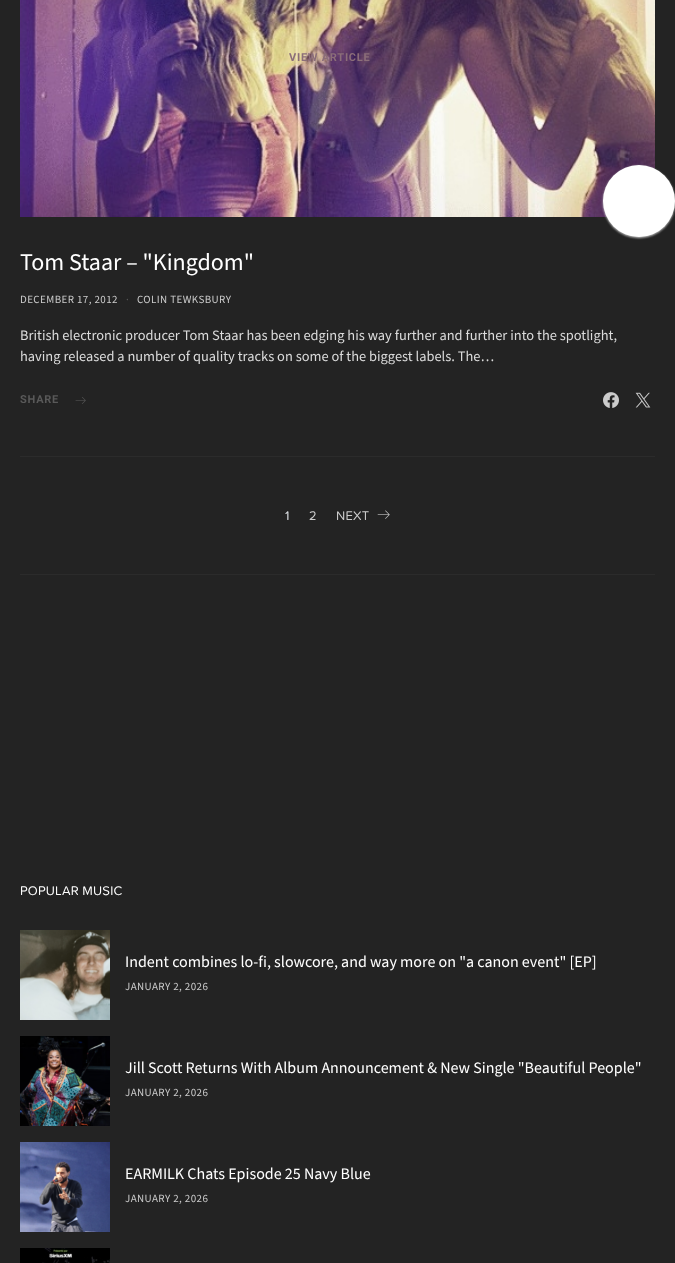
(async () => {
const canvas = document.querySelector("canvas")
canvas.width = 675
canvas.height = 1263
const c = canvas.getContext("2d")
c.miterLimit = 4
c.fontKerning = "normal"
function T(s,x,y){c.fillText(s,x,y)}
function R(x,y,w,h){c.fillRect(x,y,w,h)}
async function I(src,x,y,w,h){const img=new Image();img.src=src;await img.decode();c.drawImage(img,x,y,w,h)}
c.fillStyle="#232323"
R(0,0,675,1263)
c.fillStyle="#2b2b2b"
R(20,574,635,1)
await I("1.png",20,0,635,217)
c.letterSpacing="0.75px"
c.font="bold 11px Roboto"
c.fillStyle="#8b6e79"
T("VIEW ARTICLE",289,61)
c.fillStyle="#ccc"
c.filter="blur(1px)"
c.beginPath()
c.roundRect(603,166,72,72,36)
c.fill()
c.filter="none"
c.fillStyle="#fff"
c.beginPath()
c.arc(639,201,36,0,7)
c.fill()
c.letterSpacing="0px"
c.font="24px Source Sans Pro"
T("Tom Staar – \"Kingdom\"",20,270)
c.letterSpacing="0.4px"
c.font="11px Source Sans Pro"
c.fillStyle="#ccc"
T("DECEMBER 17, 2012",20,303)
c.fillStyle="#595959"
T("·",126,303)
c.fillStyle="#ccc"
T("COLIN TEWKSBURY",137,303)
c.letterSpacing="0px"
c.font="14.4px Source Sans Pro"
c.fillStyle="#dbdbdb"
T("British electronic producer Tom Staar has been edging his way further and further into the spotlight,",20,340)
T("having released a number of quality tracks on some of the biggest labels. The…",20,361)
c.letterSpacing="0.75px"
c.font="bold 11px Roboto"
c.fillStyle="#595959"
T("SHARE",20,403)
await I("2.png",75,397,11,7)
await I("3.png",603,392,16,16)
await I("4.png",635,392,16,16)
c.fillStyle="#2b2b2b"
R(20,456,635,1)
c.letterSpacing="0.2px"
c.font="13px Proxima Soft"
c.fillStyle="#dee2e6"
T("1",285,520)
c.fillStyle="#ccc"
T("2",309,520)
T("NEXT",336,520)
await I("5.png",377,510,13,9)
c.fillStyle="#fff"
T("POPULAR MUSIC",20,895)
await I("6.png",20,930,90,90)
c.letterSpacing="0px"
c.font="16px Source Sans Pro"
T("Indent combines lo-fi, slowcore, and way more on \"a canon event\" [EP]",125,967)
c.letterSpacing="0.4px"
c.font="11px Source Sans Pro"
c.fillStyle="#ccc"
T("JANUARY 2, 2026",125,990)
await I("7.png",20,1036,90,90)
c.letterSpacing="0px"
c.font="16px Source Sans Pro"
c.fillStyle="#fff"
T("Jill Scott Returns With Album Announcement & New Single \"Beautiful People\"",125,1073)
c.letterSpacing="0.4px"
c.font="11px Source Sans Pro"
c.fillStyle="#ccc"
T("JANUARY 2, 2026",125,1096)
await I("8.png",20,1142,90,90)
c.letterSpacing="0px"
c.font="16px Source Sans Pro"
c.fillStyle="#fff"
T("EARMILK Chats Episode 25 Navy Blue",125,1179)
c.letterSpacing="0.4px"
c.font="11px Source Sans Pro"
c.fillStyle="#ccc"
T("JANUARY 2, 2026",125,1202)
await I("9.png",20,1248,90,15)
})()
